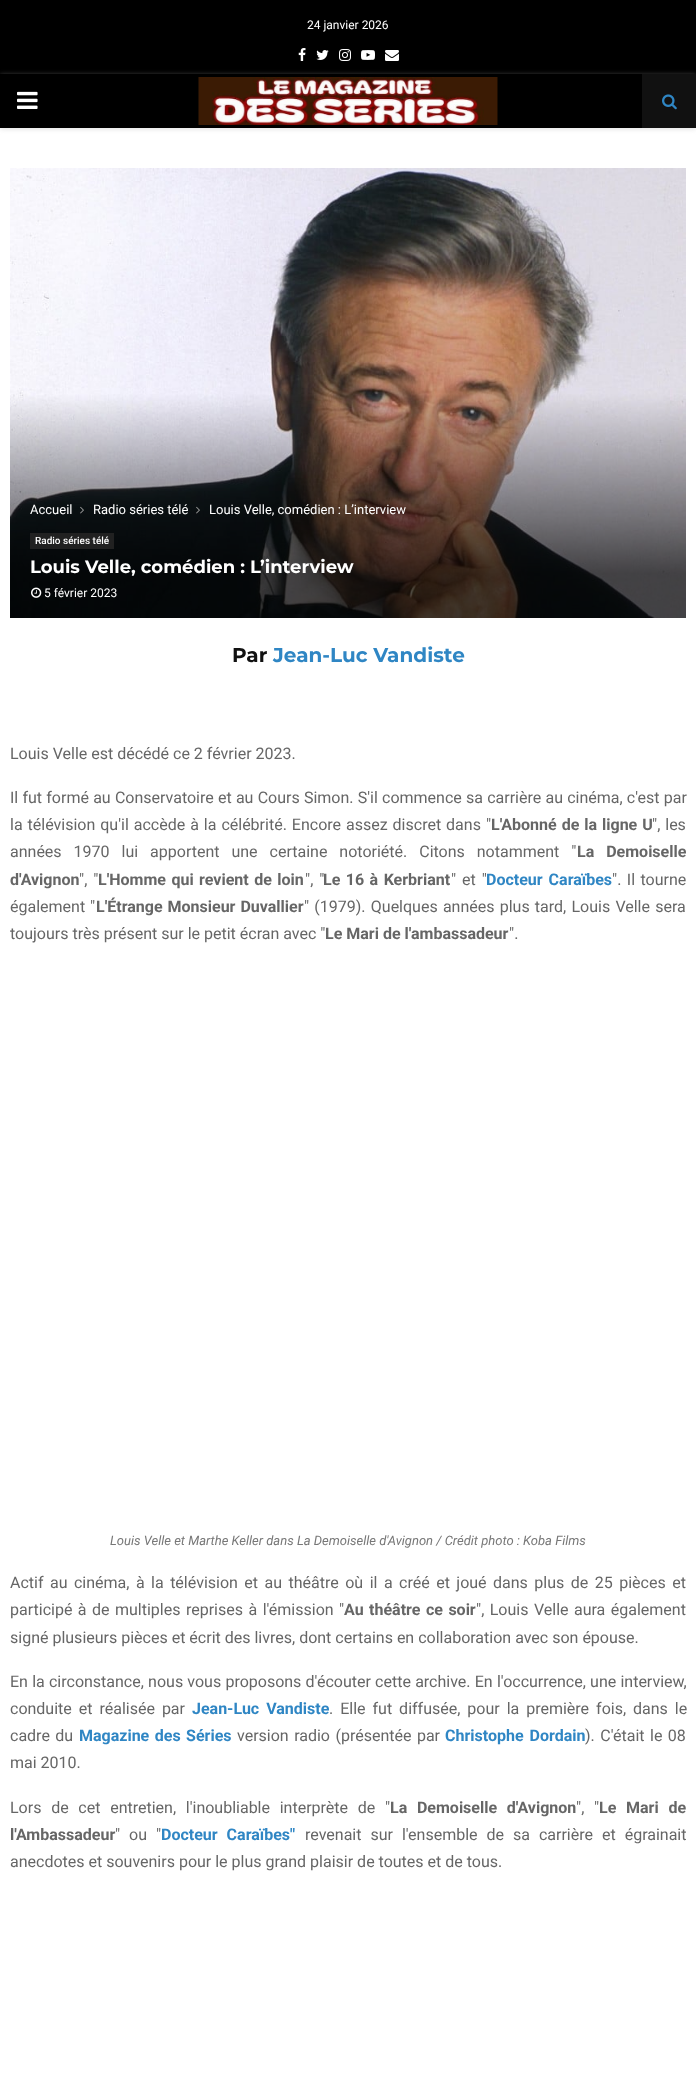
(async () => {
const canvas = document.querySelector("canvas")
canvas.width = 696
canvas.height = 2080
const c = canvas.getContext("2d")
c.miterLimit = 4
c.fontKerning = "normal"
function T(s,x,y){c.fillText(s,x,y)}
function R(x,y,w,h){c.fillRect(x,y,w,h)}
async function I(src,x,y,w,h){const img=new Image();img.src=src;await img.decode();c.drawImage(img,x,y,w,h)}
c.fillStyle="#fff"
R(0,0,696,2080)
c.fillStyle="#000"
R(0,0,696,74)
c.font="12px Roboto"
c.fillStyle="#fff"
T("24 janvier 2026",307,29)
await I("1.png",298,48,8,13)
await I("2.png",316,50,13,10)
await I("3.png",339,49,12,12)
await I("4.png",361,50,14,10)
await I("5.png",385,50,14,11)
c.fillStyle="#bebebe75"
c.filter="blur(2.5px)"
c.beginPath()
c.rect(0,75,696,54)
c.fill()
c.filter="none"
c.fillStyle="#000"
R(0,74,642,54)
await I("6.png",17,91,21,18)
await I("7.png",198,77,300,48)
c.fillStyle="#111"
R(642,74,54,54)
await I("8.png",662,94,15,16)
await I("9.png",10,168,676,450)
c.font="13px Roboto"
c.fillStyle="#fff"
T("Accueil",30,514)
await I("10.png",80,506,4,8)
T("Radio séries télé",93,514)
await I("11.png",196,506,4,8)
T("Louis Velle, comédien : L’interview",209,514)
c.fillStyle="#212121"
R(30,533,84,16)
c.font="500 10px Roboto"
c.fillStyle="#fff"
T("Radio séries télé",35,544)
c.font="bold 18px Montserrat"
T("Louis Velle, comédien : L’interview",30,573)
await I("12.png",31,587,11,11)
c.font="12px Roboto"
T("5 février 2023",44,597)
c.font="bold 20px Montserrat"
c.fillStyle="#111"
T("Par",232,662)
c.fillStyle="#2f86c4"
T("Jean-Luc Vandiste",273,662)
c.font="16px Roboto"
c.fillStyle="#666"
T("Louis Velle est décédé ce 2 février 2023.",10,759)
c.wordSpacing="0.25px"
T("Il fut formé au Conservatoire et au Cours Simon. S'il commence sa carrière au cinéma, c'est par",10,803)
c.wordSpacing="1px"
T("la télévision qu'il accède à la célébrité. Encore assez discret dans \"",10,830)
c.font="bold 16px Roboto"
T("L'Abonné de la ligne U",491,830)
c.font="16px Roboto"
T("\", les",652,830)
c.wordSpacing="8px"
T("années 1970 lui apportent une certaine notoriété. Citons notamment \"",10,857)
c.font="bold 16px Roboto"
T("La Demoiselle",577,857)
c.wordSpacing="0px"
T("d'Avignon",10,885)
c.wordSpacing="2px"
c.font="16px Roboto"
T("\", \"",79,885)
c.wordSpacing="1.5px"
c.font="bold 16px Roboto"
T("L'Homme qui revient de loin",98,885)
c.wordSpacing="2px"
c.font="16px Roboto"
T("\", \"",305,885)
c.wordSpacing="1.5px"
c.font="bold 16px Roboto"
T("Le 16 à Kerbriant",323,885)
c.wordSpacing="2px"
c.font="16px Roboto"
T("\" et \"",451,885)
c.font="bold 16px Roboto"
c.fillStyle="#2f86c4"
T("Docteur Caraïbes",486,885)
c.wordSpacing="1.5px"
c.font="16px Roboto"
c.fillStyle="#666"
T("\". Il tourne",612,885)
c.wordSpacing="1px"
T("également \"",10,912)
c.font="bold 16px Roboto"
T("L'Étrange Monsieur Duvallier",96,912)
c.wordSpacing="1.25px"
c.font="16px Roboto"
T("\" (1979). Quelques années plus tard, Louis Velle sera",304,912)
c.wordSpacing="0px"
T("toujours très présent sur le petit écran avec \"",10,939)
c.font="bold 16px Roboto"
T("Le Mari de l'ambassadeur",325,939)
c.font="16px Roboto"
T("\".",509,939)
c.font="italic 13px Roboto"
c.fillStyle="#777"
T("Louis Velle et Marthe Keller dans La Demoiselle d'Avignon / Crédit photo : Koba Films",110,1545)
c.wordSpacing="2.5px"
c.font="16px Roboto"
c.fillStyle="#666"
T("Actif au cinéma, à la télévision et au théâtre où il a créé et joué dans plus de 25 pièces et",10,1588)
c.wordSpacing="1.5px"
T("participé à de multiples reprises à l'émission \"",10,1615)
c.font="bold 16px Roboto"
T("Au théâtre ce soir",344,1615)
c.font="16px Roboto"
T("\", Louis Velle aura également",476,1615)
c.wordSpacing="0px"
T("signé plusieurs pièces et écrit des livres, dont certains en collaboration avec son épouse.",10,1643)
c.wordSpacing="0.25px"
T("En la circonstance, nous vous proposons d'écouter cette archive. En l'occurrence, une interview,",10,1687)
c.wordSpacing="3px"
T("conduite et réalisée par",10,1714)
c.font="bold 16px Roboto"
c.fillStyle="#2f86c4"
T("Jean-Luc Vandiste",192,1714)
c.font="16px Roboto"
c.fillStyle="#666"
T(". Elle fut diffusée, pour la première fois, dans le",329,1714)
c.wordSpacing="1.5px"
T("cadre du",10,1741)
c.font="bold 16px Roboto"
c.fillStyle="#2f86c4"
T("Magazine des Séries",79,1741)
c.font="16px Roboto"
c.fillStyle="#666"
T("version radio (présentée par",237,1741)
c.wordSpacing="2px"
c.font="bold 16px Roboto"
c.fillStyle="#2f86c4"
T("Christophe Dordain",445,1741)
c.wordSpacing="1.5px"
c.font="16px Roboto"
c.fillStyle="#666"
T("). C'était le 08",585,1741)
c.wordSpacing="0px"
T("mai 2010.",10,1768)
c.wordSpacing="5.75px"
T("Lors de cet entretien, l'inoubliable interprète de \"",10,1813)
c.font="bold 16px Roboto"
T("La Demoiselle d'Avignon",390,1813)
c.font="16px Roboto"
T("\", \"",576,1813)
c.font="bold 16px Roboto"
T("Le Mari de",599,1813)
c.wordSpacing="0px"
T("l'Ambassadeur",10,1840)
c.wordSpacing="5px"
c.font="16px Roboto"
T("\" ou \"",115,1840)
c.font="bold 16px Roboto"
c.fillStyle="#2f86c4"
T("Docteur Caraïbes\"",161,1840)
c.font="16px Roboto"
c.fillStyle="#666"
T("revenait sur l'ensemble de sa carrière et égrainait",305,1840)
c.wordSpacing="0px"
T("anecdotes et souvenirs pour le plus grand plaisir de toutes et de tous.",10,1867)
})()
